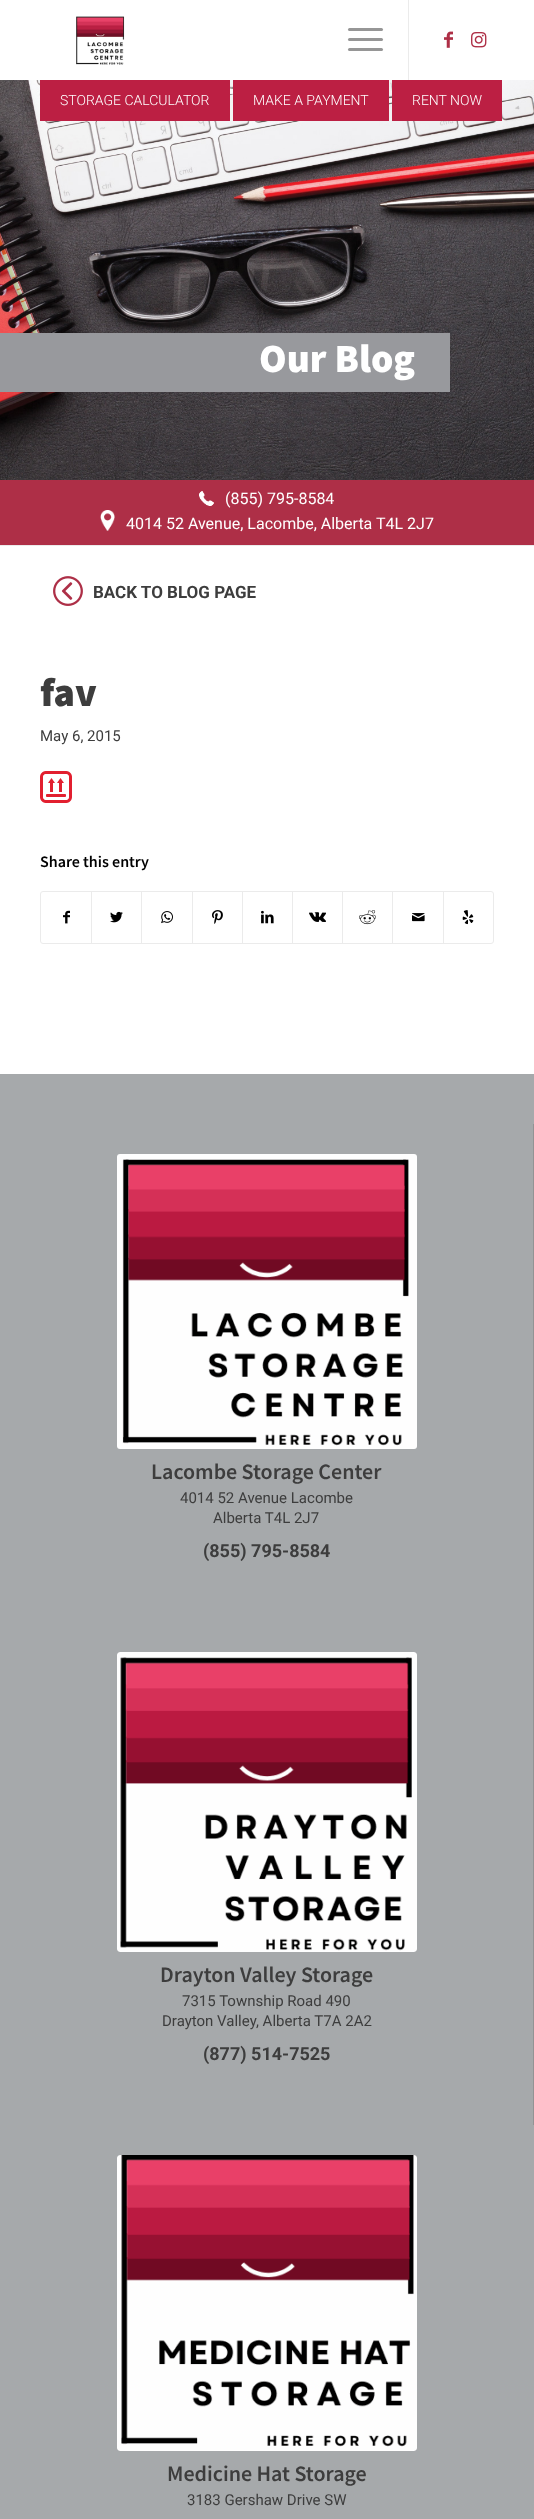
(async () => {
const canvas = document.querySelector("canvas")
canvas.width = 534
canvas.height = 2519
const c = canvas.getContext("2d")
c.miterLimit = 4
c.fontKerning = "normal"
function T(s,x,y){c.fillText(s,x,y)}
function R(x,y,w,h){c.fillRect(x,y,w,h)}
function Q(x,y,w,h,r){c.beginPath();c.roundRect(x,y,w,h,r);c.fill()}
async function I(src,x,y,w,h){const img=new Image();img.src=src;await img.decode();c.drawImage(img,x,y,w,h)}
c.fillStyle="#fff"
R(0,0,534,2519)
await I("1.png",76,16,49,49)
c.fillStyle="#ebebeb"
R(408,0,1,80)
c.fillStyle="#969696"
Q(348,38,35,3,1.5)
Q(348,28,35,3,1.5)
Q(348,48,35,3,1.5)
await I("2.png",444,31,9,17)
await I("3.png",471,32,16,16)
await I("4.png",0,80,534,400)
c.fillStyle="#bc1f43"
R(40,80,190,41)
c.font="300 14px Roboto"
c.fillStyle="#fff"
T("STORAGE CALCULATOR",60,105)
c.fillStyle="#bc1f43"
R(233,80,156,41)
c.fillStyle="#fff"
T("MAKE A PAYMENT",253,105)
c.fillStyle="#bc1f43"
R(392,80,110,41)
c.fillStyle="#fff"
T("RENT NOW",412,105)
c.fillStyle="#98999d"
R(0,333,450,59)
c.font="900 40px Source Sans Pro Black"
c.fillStyle="#fff"
T("Our Blog",259,372)
c.fillStyle="#ae2f47"
R(0,480,534,65)
await I("5.png",199,491,15,15)
c.font="16px Roboto"
c.fillStyle="#fff"
T("(855) 795-8584",225,504)
await I("6.png",100,510,15,21)
T("4014 52 Avenue, Lacombe, Alberta T4L 2J7",126,529)
c.fillStyle="#ebebeb"
R(0,545,534,1)
await I("7.png",53,576,30,30)
c.font="bold 17px Roboto"
c.fillStyle="#3d3d3d"
T("BACK TO BLOG PAGE",93,598)
c.font="900 40px Source Sans Pro Black"
T("fav",40,706)
c.font="15px Roboto"
T("May 6, 2015",40,741)
await I("8.png",40,771,32,32)
c.font="600 16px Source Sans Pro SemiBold"
c.fillStyle="#000"
T("Share this entry",40,867)
c.beginPath()
c.roundRect(40.5,891.5,453,52,2.5)
c.strokeStyle="#ebebeb"
c.stroke()
await I("9.png",63,910,7,14)
c.fillStyle="#ebebeb"
R(91,892,1,51)
await I("10.png",110,911,13,12)
R(141,892,1,51)
await I("11.png",161,911,12,13)
R(192,892,1,51)
await I("12.png",212,910,11,14)
R(242,892,1,51)
await I("13.png",261,910,13,14)
R(292,892,1,51)
await I("14.png",309,912,17,10)
R(342,892,1,51)
await I("15.png",359,910,17,15)
R(392,892,1,51)
await I("16.png",412,913,13,9)
R(443,892,1,51)
await I("17.png",462,910,12,15)
c.fillStyle="#a6a9ab"
R(0,1074,534,1445)
c.fillStyle="#929394"
R(533,1124,1,1001)
await I("18.png",117,1154,300,295)
c.font="600 22px Source Sans Pro SemiBold"
c.fillStyle="#3d3d3d"
T("Lacombe Storage Center",151,1479)
c.font="15px Roboto"
T("4014 52 Avenue Lacombe",180,1503)
T("Alberta T4L 2J7",213,1523)
c.font="bold 18px Roboto"
T("(855) 795-8584",203,1557)
await I("19.png",117,1652,300,300)
c.font="600 22px Source Sans Pro SemiBold"
T("Drayton Valley Storage",160,1982)
c.font="15px Roboto"
T("7315 Township Road 490",182,2006)
T("Drayton Valley, Alberta T7A 2A2",162,2026)
c.font="bold 18px Roboto"
T("(877) 514-7525",203,2060)
await I("20.png",117,2155,300,296)
c.font="600 22px Source Sans Pro SemiBold"
T("Medicine Hat Storage",167,2481)
c.font="15px Roboto"
T("3183 Gershaw Drive SW",187,2505)
})()
